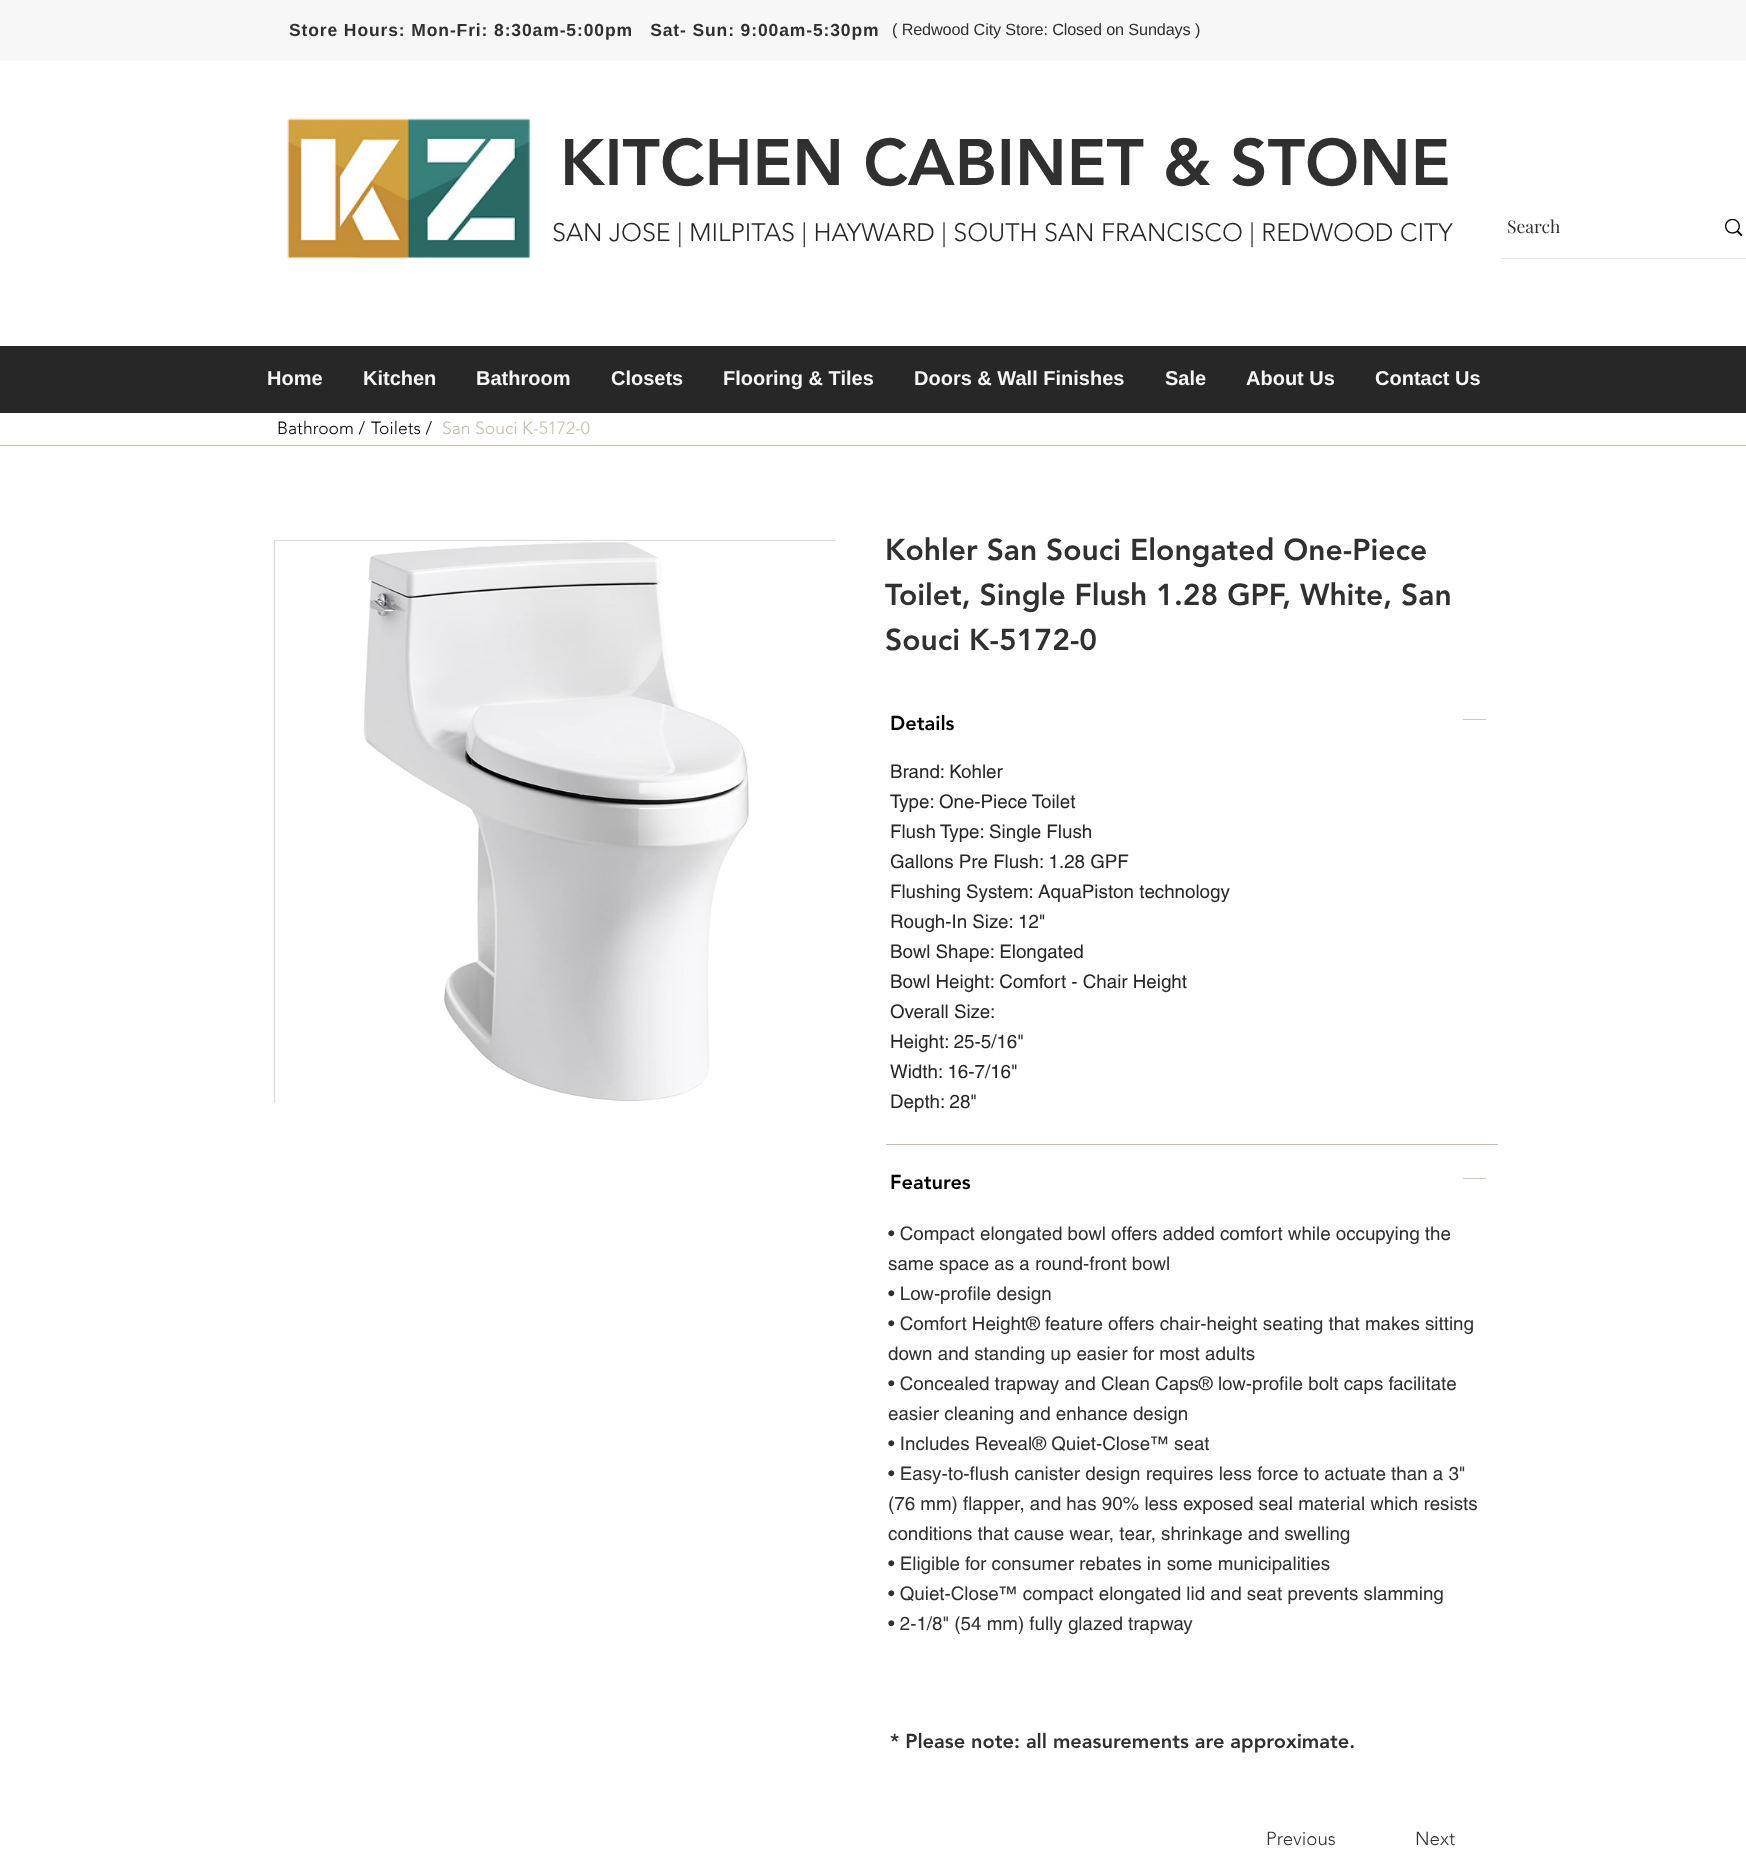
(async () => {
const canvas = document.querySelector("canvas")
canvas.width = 1746
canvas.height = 1854
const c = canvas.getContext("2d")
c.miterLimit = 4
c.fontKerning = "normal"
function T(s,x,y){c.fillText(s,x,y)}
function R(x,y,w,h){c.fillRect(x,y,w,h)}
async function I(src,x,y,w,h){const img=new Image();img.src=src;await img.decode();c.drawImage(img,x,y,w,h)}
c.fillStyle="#fff"
R(0,0,1746,1854)
c.fillStyle="#f7f7f7"
R(0,0,1746,61)
c.letterSpacing="0.88px"
c.font="bold 17.5px Liberation Sans"
c.fillStyle="#303030"
T("Store Hours: Mon-Fri: 8:30am-5:00pm   Sat- Sun: 9:00am-5:30pm",289,36)
c.letterSpacing="-0.15px"
c.font="16.25px Liberation Sans"
T("( Redwood City Store: Closed on Sundays )",892,35)
await I("1.png",287,118,244,141)
c.letterSpacing="0px"
c.font="900 65px 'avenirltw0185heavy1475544'"
T("KITCHEN CABINET & STONE",560,185)
c.font="300 25px 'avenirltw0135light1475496'"
c.fillStyle="#272727"
T("SAN JOSE | MILPITAS | HAYWARD | SOUTH SAN FRANCISCO | REDWOOD CITY",552,241)
c.fillStyle="#ebe5d6"
R(1501,258,245,1)
c.font="17.5px Playfair Display"
c.fillStyle="#303030"
T("Search",1507,233)
await I("2.png",1725,219,18,17)
c.fillStyle="#272727"
R(0,346,1746,67)
c.font="bold 20px Liberation Sans"
c.fillStyle="#f5f5f5"
T("Home",267,385)
T("Kitchen",363,385)
T("Bathroom",476,385)
T("Closets",611,385)
T("Flooring & Tiles",723,385)
T("Doors & Wall Finishes",914,385)
T("Sale",1165,385)
T("About Us",1246,385)
T("Contact Us",1375,385)
c.font="300 17.5px 'avenirltw0135light1475496'"
c.fillStyle="#000"
T("Bathroom /",277,434)
T("Toilets /",371,434)
c.fillStyle="#c7bbab"
T("San Souci K-5172-0",442,434)
R(0,445,1746,1)
c.fillStyle="#dbdbdb"
R(274,540,562,563)
await I("3.png",275,541,561,562)
c.font="900 30px 'avenirltw0185heavy1475544'"
c.fillStyle="#303030"
T("Kohler San Souci Elongated One-Piece",885,560)
T("Toilet, Single Flush 1.28 GPF, White, San",885,605)
T("Souci K-5172-0",885,650)
c.font="900 20px 'avenirltw0185heavy1475544'"
c.fillStyle="#000"
T("Details",890,730)
c.fillStyle="#d2c9bc"
R(1463,719,23,1)
c.font="18.75px helvetica"
c.fillStyle="#272727"
T("Brand: Kohler",890,778)
T("Type: One-Piece Toilet",890,808)
T("Flush Type: Single Flush",890,838)
T("Gallons Pre Flush: 1.28 GPF",890,868)
T("Flushing System: AquaPiston technology",890,898)
T("Rough-In Size: 12\"",890,928)
T("Bowl Shape: Elongated",890,958)
T("Bowl Height: Comfort - Chair Height",890,988)
T("Overall Size:",890,1018)
T("Height: 25-5/16\"",890,1048)
T("Width: 16-7/16\"",890,1078)
T("Depth: 28\"",890,1108)
c.fillStyle="#c7bbab"
R(886,1144,612,1)
c.font="900 20px 'avenirltw0185heavy1475544'"
c.fillStyle="#000"
T("Features",890,1189)
c.fillStyle="#d2c9bc"
R(1463,1178,23,1)
c.font="18.75px helvetica"
c.fillStyle="#303030"
T("• Compact elongated bowl offers added comfort while occupying the",888,1240)
T("same space as a round-front bowl",888,1270)
T("• Low-profile design",888,1300)
T("• Comfort Height® feature offers chair-height seating that makes sitting",888,1330)
T("down and standing up easier for most adults",888,1360)
T("• Concealed trapway and Clean Caps® low-profile bolt caps facilitate",888,1390)
T("easier cleaning and enhance design",888,1420)
T("• Includes Reveal® Quiet-Close™ seat",888,1450)
T("• Easy-to-flush canister design requires less force to actuate than a 3\"",888,1480)
T("(76 mm) flapper, and has 90% less exposed seal material which resists",888,1510)
T("conditions that cause wear, tear, shrinkage and swelling",888,1540)
T("• Eligible for consumer rebates in some municipalities",888,1570)
T("• Quiet-Close™ compact elongated lid and seat prevents slamming",888,1600)
T("• 2-1/8\" (54 mm) fully glazed trapway",888,1630)
c.font="900 20px 'avenirltw0185heavy1475544'"
T("* Please note: all measurements are approximate.",890,1748)
c.font="300 18.75px 'avenirltw0135light1475496'"
T("Previous",1266,1845)
T("Next",1415,1845)
})()
